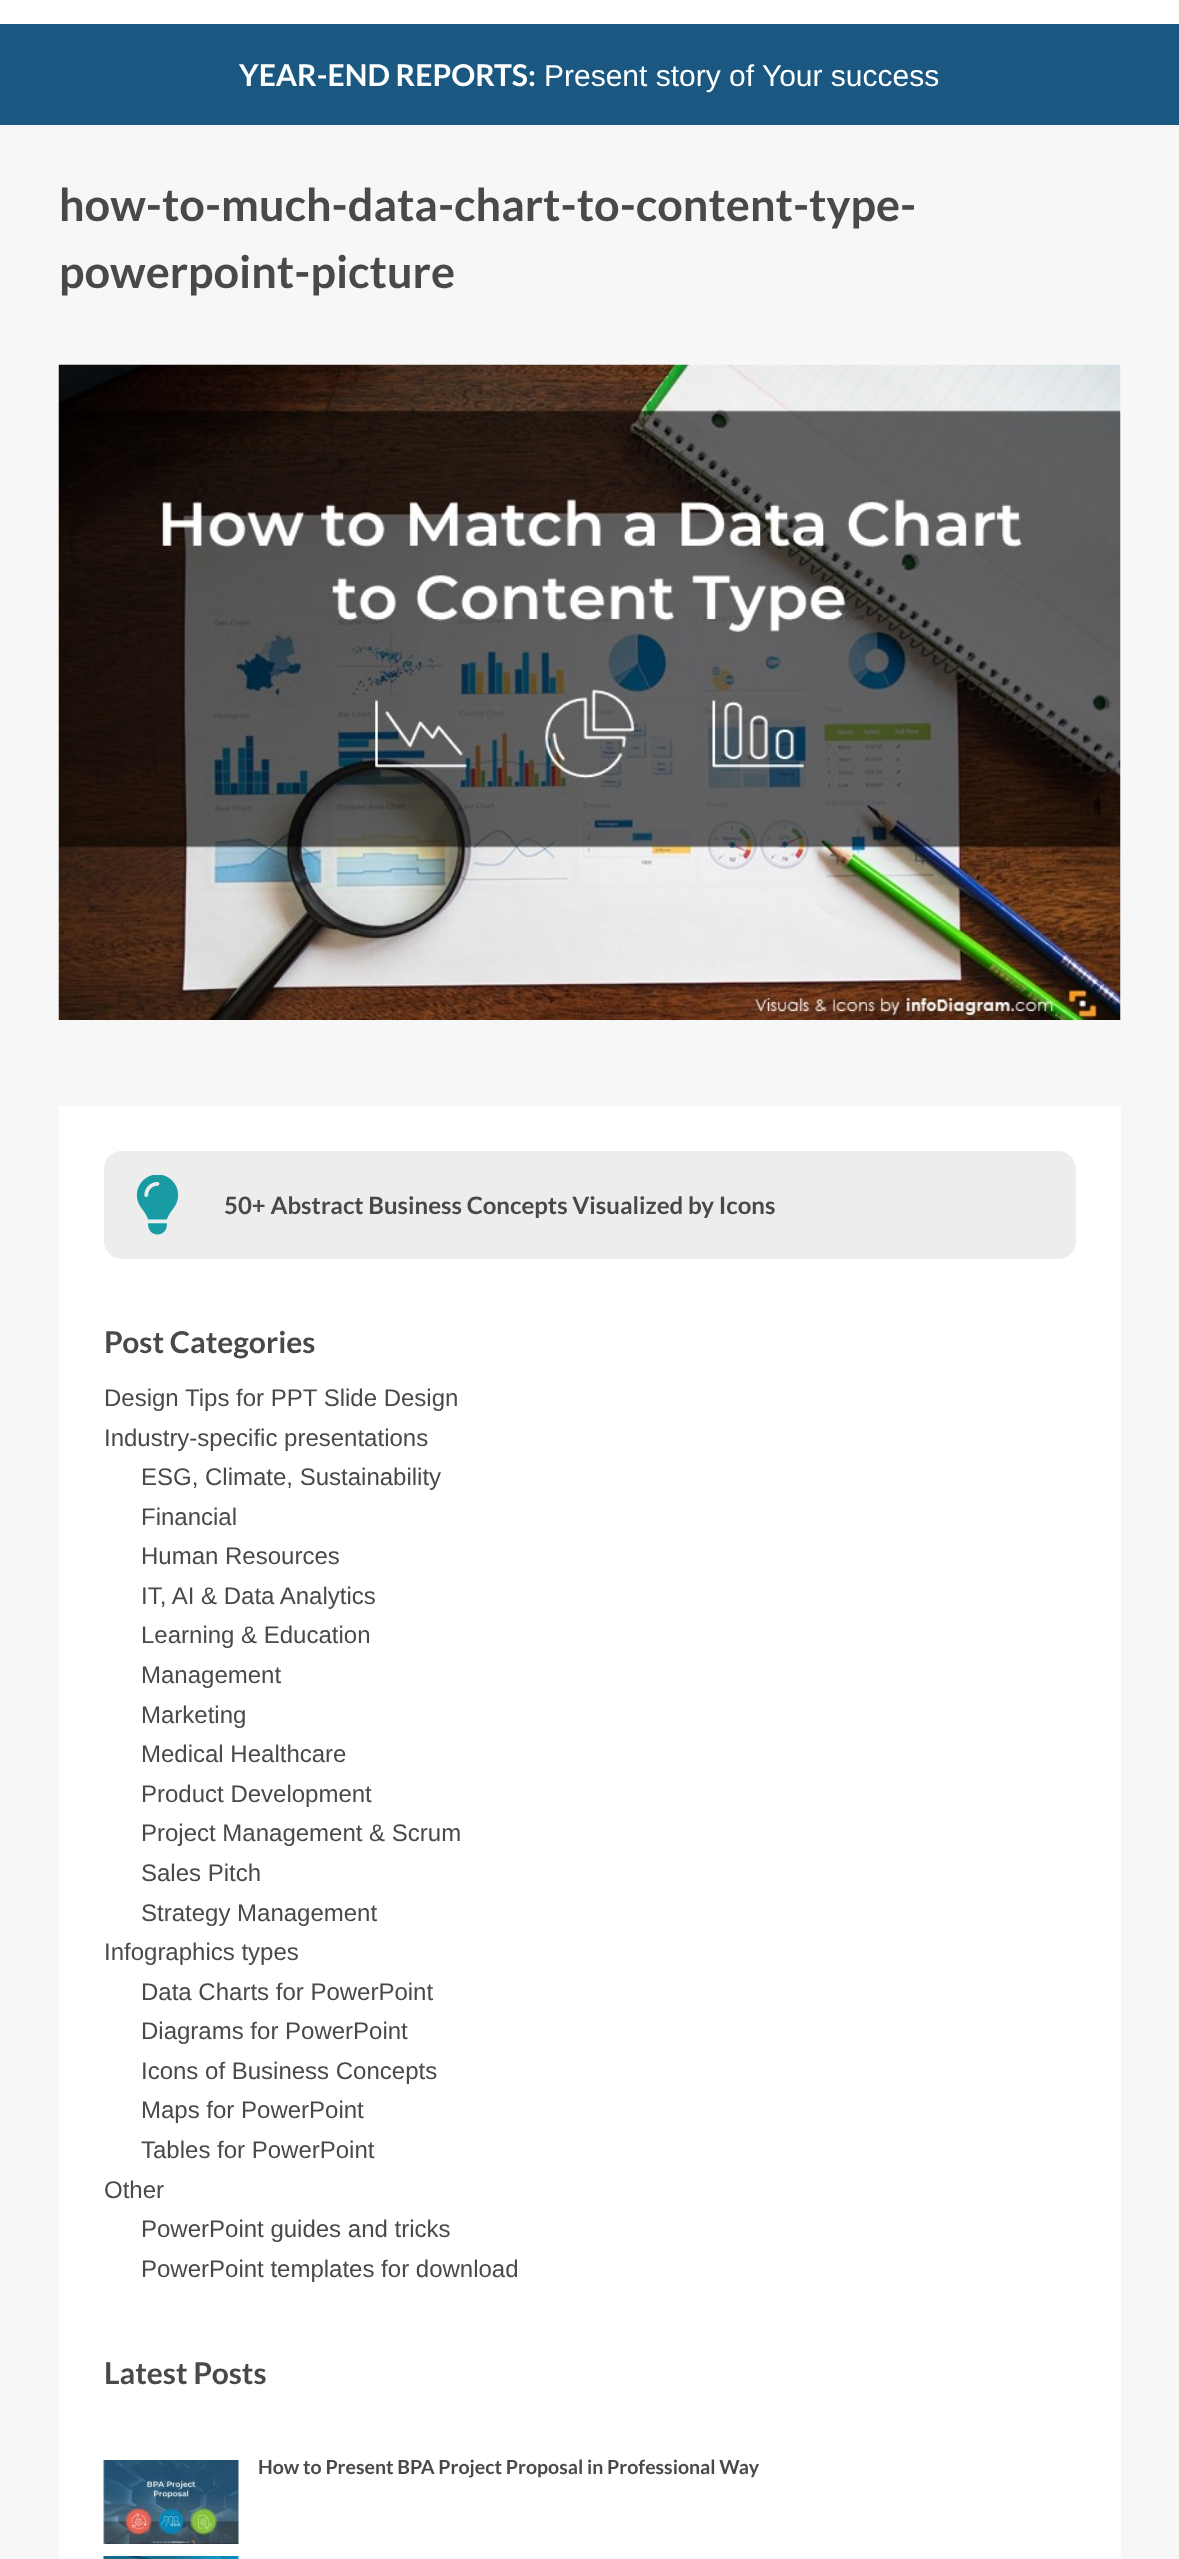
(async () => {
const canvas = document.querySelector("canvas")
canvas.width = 1179
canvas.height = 2559
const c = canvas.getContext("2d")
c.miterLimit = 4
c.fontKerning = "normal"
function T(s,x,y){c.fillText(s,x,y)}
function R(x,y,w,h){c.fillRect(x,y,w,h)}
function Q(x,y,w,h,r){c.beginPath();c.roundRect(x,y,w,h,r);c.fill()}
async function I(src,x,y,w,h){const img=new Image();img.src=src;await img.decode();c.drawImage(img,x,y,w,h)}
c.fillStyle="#f7f7f7"
R(0,0,1179,2559)
c.fillStyle="#fff"
R(0,0,1179,24)
c.fillStyle="#1a5882"
R(0,24,1179,101)
c.font="bold 30px Lato"
c.fillStyle="#fff"
T("YEAR-END REPORTS:",239,86)
c.font="30px Liberation Sans"
T("Present story of Your success",544,86)
c.font="bold 45px Lato"
c.fillStyle="#494949"
T("how-to-much-data-chart-to-content-type-",59,221)
T("powerpoint-picture",59,288)
await I("1.png",58,364,1063,656)
c.fillStyle="#fff"
R(59,1106,1062,1453)
c.fillStyle="#ededed"
Q(104,1151,972,108,18)
await I("2.png",136,1175,43,60)
c.font="bold 24px Lato"
c.fillStyle="#494949"
T("50+ Abstract Business Concepts Visualized by Icons",224,1214)
c.font="bold 30px Lato"
T("Post Categories",104,1353)
c.font="24px Liberation Sans"
T("Design Tips for PPT Slide Design",104,1406)
T("Industry-specific presentations",104,1446)
T("ESG, Climate, Sustainability",141,1485)
T("Financial",141,1525)
T("Human Resources",141,1564)
T("IT, AI & Data Analytics",141,1604)
T("Learning & Education",141,1643)
T("Management",141,1683)
T("Marketing",141,1723)
T("Medical Healthcare",141,1762)
T("Product Development",141,1802)
T("Project Management & Scrum",141,1841)
T("Sales Pitch",141,1881)
T("Strategy Management",141,1921)
T("Infographics types",104,1960)
T("Data Charts for PowerPoint",141,2000)
T("Diagrams for PowerPoint",141,2039)
T("Icons of Business Concepts",141,2079)
T("Maps for PowerPoint",141,2118)
T("Tables for PowerPoint",141,2158)
T("Other",104,2198)
T("PowerPoint guides and tricks",141,2237)
T("PowerPoint templates for download",141,2277)
c.font="bold 30px Lato"
T("Latest Posts",104,2384)
await I("3.png",103,2460,136,84)
c.font="bold 19.5px Lato"
T("How to Present BPA Project Proposal in Professional Way",258,2474)
await I("4.png",103,2556,136,3)
})()
